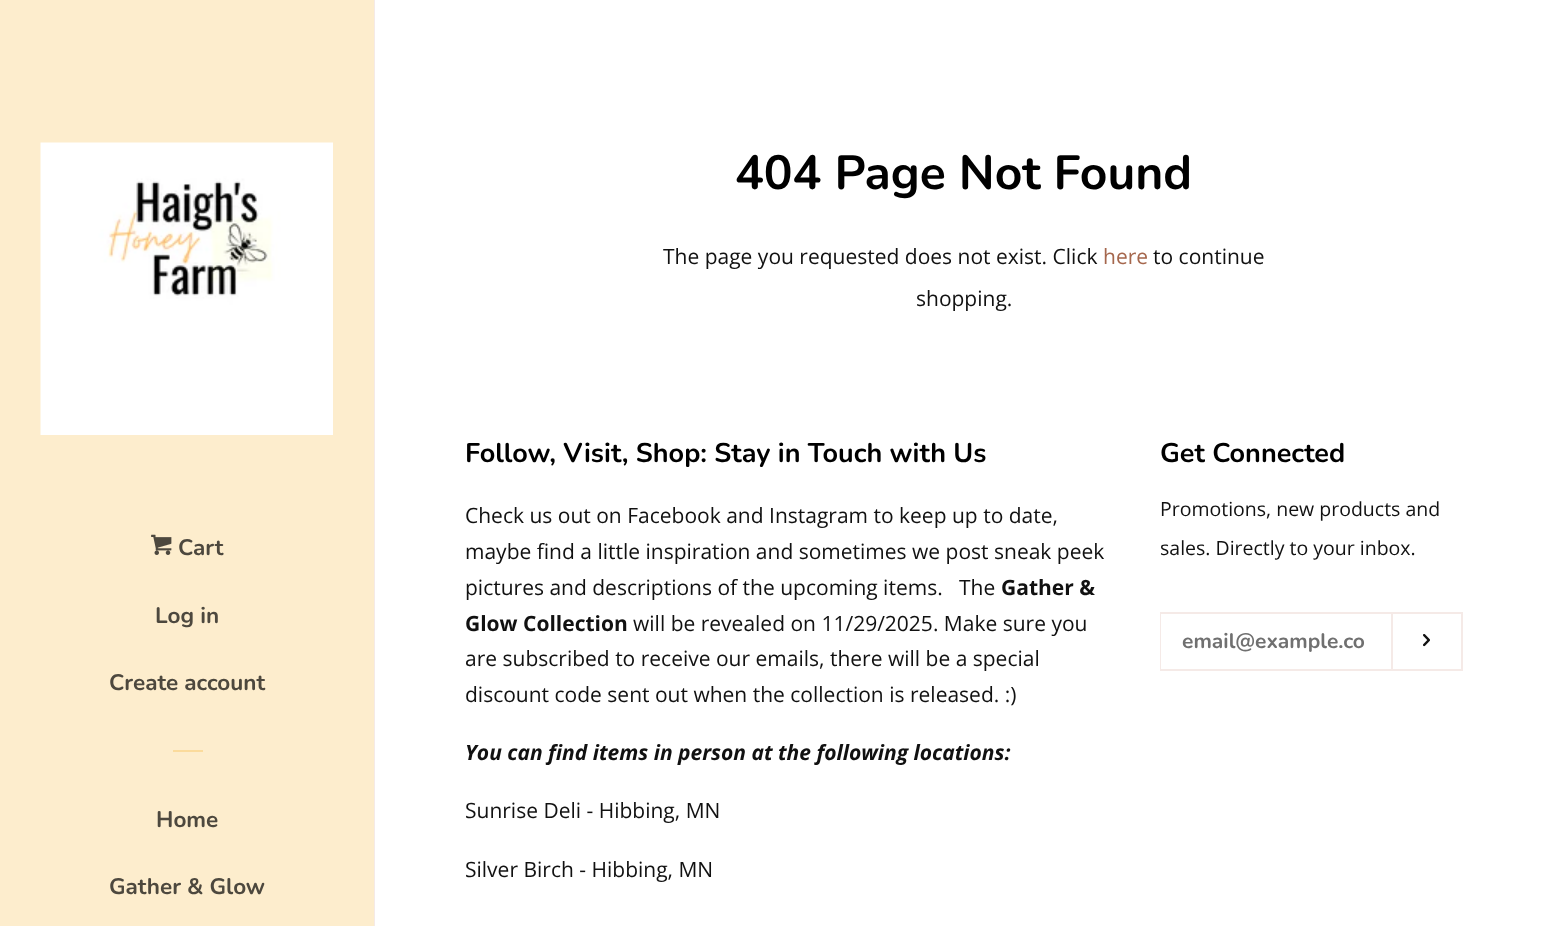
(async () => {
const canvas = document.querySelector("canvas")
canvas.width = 1552
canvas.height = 926
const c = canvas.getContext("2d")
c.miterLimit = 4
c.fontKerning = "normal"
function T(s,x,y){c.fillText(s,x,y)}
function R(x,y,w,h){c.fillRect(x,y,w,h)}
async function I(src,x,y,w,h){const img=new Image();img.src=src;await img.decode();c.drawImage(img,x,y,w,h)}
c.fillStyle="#fdedcd"
R(0,0,1552,926)
c.fillStyle="#f5eae7"
R(374,0,1,926)
await I("1.png",40,142,293,293)
await I("2.png",151,534,21,21)
c.font="bold 22.5px Nunito"
c.fillStyle="#4d483e"
T("Cart",178,555)
T("Log in",155,623)
T("Create account",109,690)
c.fillStyle="#fbdb9c"
R(173,750,30,2)
c.fillStyle="#4d483e"
T("Home",156,827)
T("Gather & Glow",109,894)
c.fillStyle="#fff"
R(375,0,1177,926)
c.font="bold 48px Nunito"
c.fillStyle="#000"
T("404 Page Not Found",735,189)
c.font="21px Open Sans"
c.fillStyle="#111"
T("The page you requested does not exist. Click",663,264)
c.fillStyle="#a5674d"
T("here",1103,264)
c.fillStyle="#111"
T("to continue",1153,264)
T("shopping.",916,306)
c.font="bold 27px Nunito"
c.fillStyle="#000"
T("Follow, Visit, Shop: Stay in Touch with Us",465,462)
c.font="21px Open Sans"
c.fillStyle="#111"
T("Check us out on Facebook and Instagram to keep up to date,",465,523)
T("maybe find a little inspiration and sometimes we post sneak peek",465,559)
T("pictures and descriptions of the upcoming items.   The",465,595)
c.font="bold 21px Open Sans"
T("Gather &",1001,595)
T("Glow Collection",465,631)
c.font="21px Open Sans"
T("will be revealed on 11/29/2025. Make sure you",633,631)
T("are subscribed to receive our emails, there will be a special",465,666)
T("discount code sent out when the collection is released. :)",465,702)
c.font="italic bold 21px Open Sans"
T("You can find items in person at the following locations:",465,760)
c.font="21px Open Sans"
T("Sunrise Deli - Hibbing, MN",465,818)
T("Silver Birch - Hibbing, MN",465,877)
c.font="bold 27px Nunito"
c.fillStyle="#000"
T("Get Connected",1160,462)
c.font="19.5px Open Sans"
c.fillStyle="#111"
T("Promotions, new products and",1160,516)
T("sales. Directly to your inbox.",1160,555)
c.strokeStyle="#f5eae7"
c.lineWidth=2
c.strokeRect(1161,613,301,57)
c.fillStyle="#fff"
R(1161,614,1,55)
c.fillStyle="#f5eae7"
R(1391,614,2,55)
c.font="bold 21px Nunito"
c.fillStyle="#707070"
T("email@example.co",1182,648)
await I("3.png",1423,634,7,13)
})()
